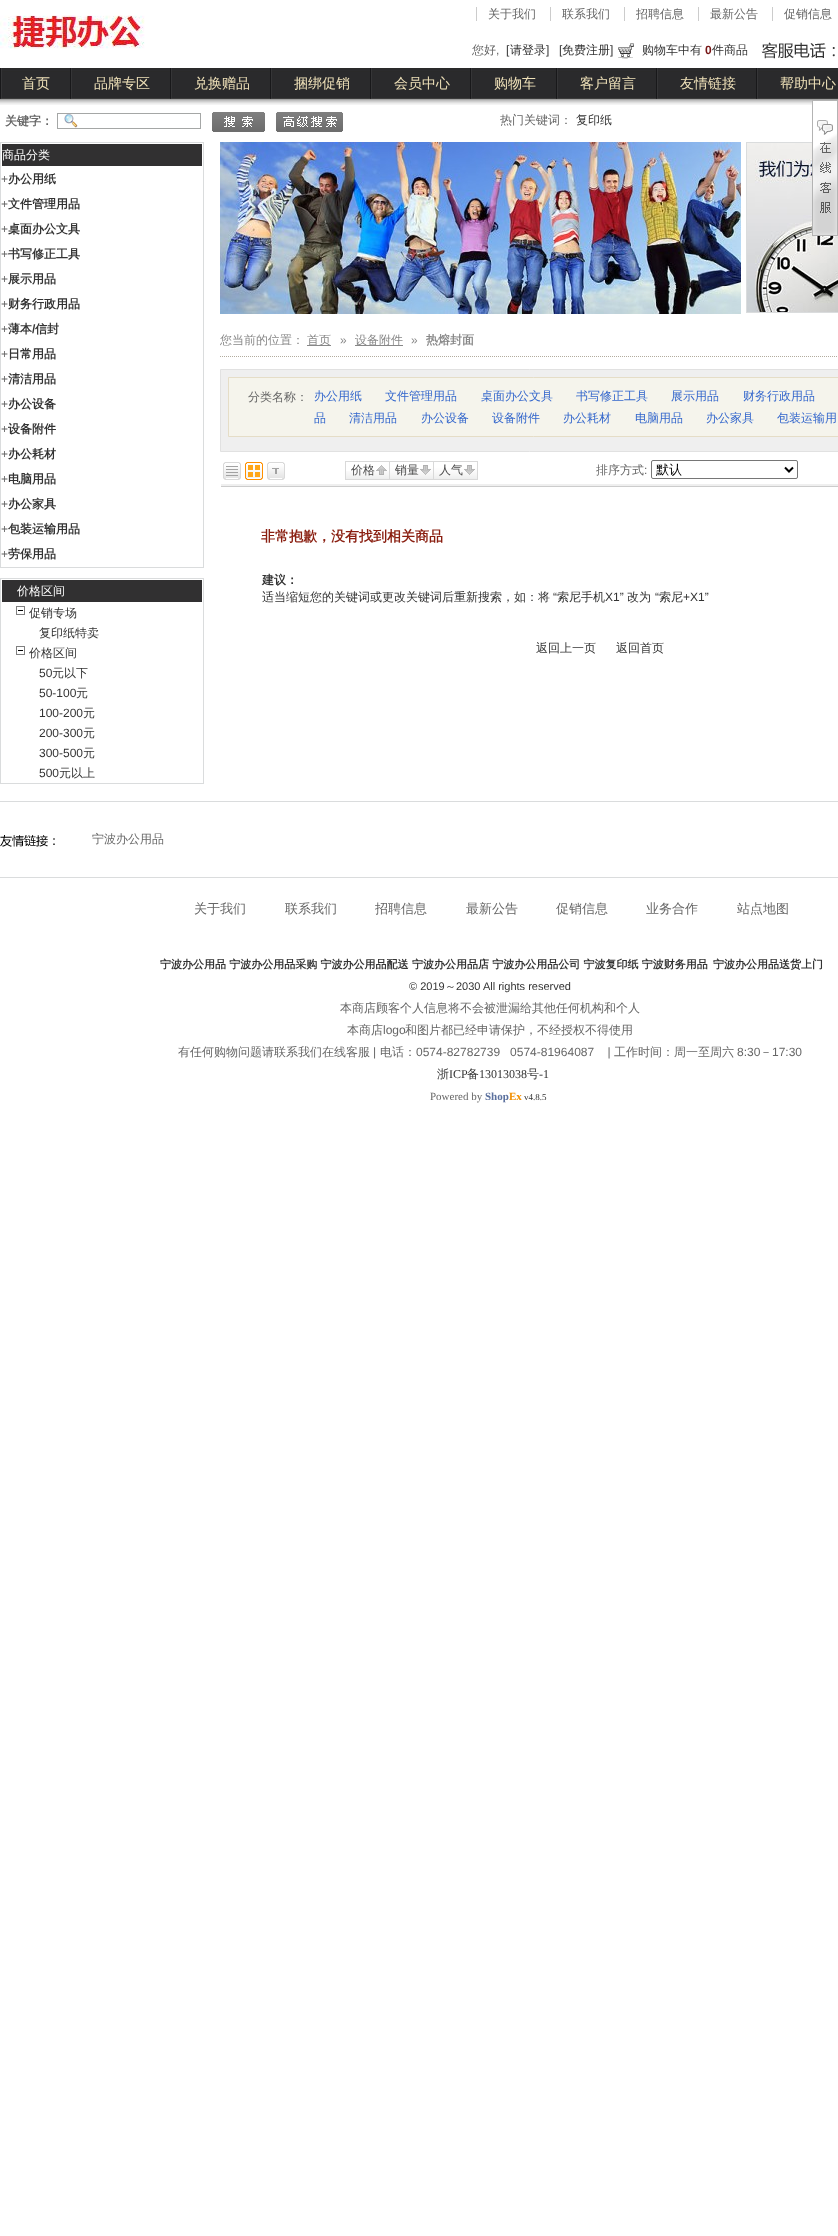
(async () => {
const canvas = document.querySelector("canvas")
canvas.width = 838
canvas.height = 2236
const c = canvas.getContext("2d")
c.miterLimit = 4
c.fontKerning = "normal"
function T(s,x,y){c.fillText(s,x,y)}
function R(x,y,w,h){c.fillRect(x,y,w,h)}
async function I(src,x,y,w,h){const img=new Image();img.src=src;await img.decode();c.drawImage(img,x,y,w,h)}
let path
c.fillStyle="#fff"
R(0,0,838,2236)
await I("1.png",0,68,838,37)
c.font="500 12px WenQuanYi Zen Hei"
c.fillStyle="#666"
T("关于我们",488,18)
c.fillStyle="#ccc"
R(476,7,1,14)
c.fillStyle="#666"
T("联系我们",562,18)
c.fillStyle="#ccc"
R(550,7,1,14)
c.fillStyle="#666"
T("招聘信息",636,18)
c.fillStyle="#ccc"
R(624,7,1,14)
c.fillStyle="#666"
T("最新公告",710,18)
c.fillStyle="#ccc"
R(698,7,1,14)
c.fillStyle="#666"
T("促销信息",784,18)
c.fillStyle="#ccc"
R(772,7,1,14)
await I("2.png",0,15,145,34)
c.fillStyle="#666"
T("您好",472,54)
c.font="12px Liberation Sans"
T(",",496,54)
c.fillStyle="#333"
T("[",506,54)
c.font="500 12px WenQuanYi Zen Hei"
T("请登录",510,54)
c.font="12px Liberation Sans"
T("]",546,54)
T("[",559,54)
c.font="500 12px WenQuanYi Zen Hei"
T("免费注册",562,54)
c.font="12px Liberation Sans"
T("]",610,54)
await I("3.png",618,43,16,16)
c.font="500 12px WenQuanYi Zen Hei"
T("购物车中有",642,54)
c.font="bold 12px Liberation Sans"
c.fillStyle="#771717"
T("0",705,54)
c.font="500 12px WenQuanYi Zen Hei"
c.fillStyle="#333"
T("件商品",712,54)
await I("4.png",761,42,74,17)
await I("5.png",0,68,2,31)
await I("5.png",70,68,2,31)
c.font="500 14px WenQuanYi Zen Hei"
c.fillStyle="#eee0b8"
T("首页",22,88)
await I("5.png",170,68,2,31)
T("品牌专区",94,88)
await I("5.png",270,68,2,31)
T("兑换赠品",194,88)
await I("5.png",370,68,2,31)
T("捆绑促销",294,88)
await I("5.png",470,68,2,31)
T("会员中心",394,88)
await I("5.png",556,68,2,31)
T("购物车",494,88)
await I("5.png",656,68,2,31)
T("客户留言",580,88)
await I("5.png",756,68,2,31)
T("友情链接",680,88)
T("帮助中心",780,88)
c.font="bold 12px WenQuanYi Zen Hei"
c.fillStyle="#666"
T("关键字：",5,125)
await I("6.png",64,114,14,14)
c.strokeStyle="#a5a7a6"
c.strokeRect(57.5,113.5,143,15)
await I("7.png",212,112,53,20)
await I("8.png",276,112,67,20)
c.font="500 12px WenQuanYi Zen Hei"
T("热门关键词：",500,124)
c.fillStyle="#333"
T("复印纸",576,124)
c.strokeStyle="#dadcdd"
c.strokeRect(.5,142.5,203,425)
c.fillStyle="#313031"
R(2,144,200,22)
c.fillStyle="#fff"
T("商品分类",2,159)
c.font="12px Liberation Sans"
c.fillStyle="#666"
T("+",1,183)
c.font="bold 12px WenQuanYi Zen Hei"
c.fillStyle="#333"
T("办公用纸",8,183)
c.font="12px Liberation Sans"
c.fillStyle="#666"
T("+",1,208)
c.font="bold 12px WenQuanYi Zen Hei"
c.fillStyle="#333"
T("文件管理用品",8,208)
c.font="12px Liberation Sans"
c.fillStyle="#666"
T("+",1,233)
c.font="bold 12px WenQuanYi Zen Hei"
c.fillStyle="#333"
T("桌面办公文具",8,233)
c.font="12px Liberation Sans"
c.fillStyle="#666"
T("+",1,258)
c.font="bold 12px WenQuanYi Zen Hei"
c.fillStyle="#333"
T("书写修正工具",8,258)
c.font="12px Liberation Sans"
c.fillStyle="#666"
T("+",1,283)
c.font="bold 12px WenQuanYi Zen Hei"
c.fillStyle="#333"
T("展示用品",8,283)
c.font="12px Liberation Sans"
c.fillStyle="#666"
T("+",1,308)
c.font="bold 12px WenQuanYi Zen Hei"
c.fillStyle="#333"
T("财务行政用品",8,308)
c.font="12px Liberation Sans"
c.fillStyle="#666"
T("+",1,333)
c.font="bold 12px WenQuanYi Zen Hei"
c.fillStyle="#333"
T("薄本",8,333)
c.font="bold 12px Liberation Sans"
T("/",32,333)
c.font="bold 12px WenQuanYi Zen Hei"
T("信封",35,333)
c.font="12px Liberation Sans"
c.fillStyle="#666"
T("+",1,358)
c.font="bold 12px WenQuanYi Zen Hei"
c.fillStyle="#333"
T("日常用品",8,358)
c.font="12px Liberation Sans"
c.fillStyle="#666"
T("+",1,383)
c.font="bold 12px WenQuanYi Zen Hei"
c.fillStyle="#333"
T("清洁用品",8,383)
c.font="12px Liberation Sans"
c.fillStyle="#666"
T("+",1,408)
c.font="bold 12px WenQuanYi Zen Hei"
c.fillStyle="#333"
T("办公设备",8,408)
c.font="12px Liberation Sans"
c.fillStyle="#666"
T("+",1,433)
c.font="bold 12px WenQuanYi Zen Hei"
c.fillStyle="#333"
T("设备附件",8,433)
c.font="12px Liberation Sans"
c.fillStyle="#666"
T("+",1,458)
c.font="bold 12px WenQuanYi Zen Hei"
c.fillStyle="#333"
T("办公耗材",8,458)
c.font="12px Liberation Sans"
c.fillStyle="#666"
T("+",1,483)
c.font="bold 12px WenQuanYi Zen Hei"
c.fillStyle="#333"
T("电脑用品",8,483)
c.font="12px Liberation Sans"
c.fillStyle="#666"
T("+",1,508)
c.font="bold 12px WenQuanYi Zen Hei"
c.fillStyle="#333"
T("办公家具",8,508)
c.font="12px Liberation Sans"
c.fillStyle="#666"
T("+",1,533)
c.font="bold 12px WenQuanYi Zen Hei"
c.fillStyle="#333"
T("包装运输用品",8,533)
c.font="12px Liberation Sans"
c.fillStyle="#666"
T("+",1,558)
c.font="bold 12px WenQuanYi Zen Hei"
c.fillStyle="#333"
T("劳保用品",8,558)
c.strokeRect(.5,578.5,203,205)
c.fillStyle="#313031"
R(2,580,200,22)
c.font="500 12px WenQuanYi Zen Hei"
c.fillStyle="#fff"
T("价格区间",17,595)
await I("9.png",16,606,9,9)
c.fillStyle="#333"
T("促销专场",29,617)
T("复印纸特卖",39,637)
await I("9.png",16,646,9,9)
T("价格区间",29,657)
c.font="12px Liberation Sans"
T("50",39,677)
c.font="500 12px WenQuanYi Zen Hei"
T("元以下",52,677)
c.font="12px Liberation Sans"
T("50-100",39,697)
c.font="500 12px WenQuanYi Zen Hei"
T("元",76,697)
c.font="12px Liberation Sans"
T("100-200",39,717)
c.font="500 12px WenQuanYi Zen Hei"
T("元",83,717)
c.font="12px Liberation Sans"
T("200-300",39,737)
c.font="500 12px WenQuanYi Zen Hei"
T("元",83,737)
c.font="12px Liberation Sans"
T("300-500",39,757)
c.font="500 12px WenQuanYi Zen Hei"
T("元",83,757)
c.font="12px Liberation Sans"
T("500",39,777)
c.font="500 12px WenQuanYi Zen Hei"
T("元以上",59,777)
await I("10.png",220,142,521,172)
await I("11.png",747,143,91,169)
c.strokeRect(746.5,142.5,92,170)
path = new Path2D("M220 356.5h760")
c.strokeStyle="#b2ac9e"
c.setLineDash([1,1])
c.stroke(path)
c.fillStyle="#888"
T("您当前的位置：",220,344)
R(307,345,24,1)
T("首页",307,344)
c.font="12px Liberation Sans"
T("»",340,344)
R(355,345,48,1)
c.font="500 12px WenQuanYi Zen Hei"
T("设备附件",355,344)
c.font="12px Liberation Sans"
T("»",411,344)
c.font="bold 12px WenQuanYi Zen Hei"
T("热熔封面",426,344)
c.fillStyle="#efefef"
c.beginPath()
c.rect(220.5,369.5,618,82)
c.fill()
c.strokeStyle="#e1e1e1"
c.setLineDash([])
c.stroke()
c.fillStyle="#f5f4ec"
c.beginPath()
c.rect(228.5,377.5,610,59)
c.fill()
c.strokeStyle="#e5ddc7"
c.stroke()
c.font="500 12px WenQuanYi Zen Hei"
c.fillStyle="#666"
T("分类名称：",248,401)
c.fillStyle="#36c"
T("办公用纸",314,400)
T("文件管理用品",385,400)
T("桌面办公文具",481,400)
T("书写修正工具",576,400)
T("展示用品",671,400)
T("财务行政用品",743,400)
T("品",314,422)
T("清洁用品",349,422)
T("办公设备",421,422)
T("设备附件",492,422)
T("办公耗材",563,422)
T("电脑用品",635,422)
T("办公家具",706,422)
T("包装运输用",777,422)
c.fillStyle="#ccc"
R(220,486,618,1)
c.fillStyle="#fff"
R(220,486,1,1)
c.fillStyle="#efefef"
R(221,484,617,2)
await I("12.png",223,462,18,18)
await I("13.png",245,462,18,18)
await I("14.png",267,462,18,18)
await I("15.png",346,471,43,8)
c.strokeStyle="#d9d9d9"
c.strokeRect(345.5,461.5,44,18)
await I("16.png",376,465,11,10)
c.fillStyle="#4a4a4a"
T("价格",351,474)
await I("17.png",390,462,43,17)
c.strokeRect(389.5,461.5,44,18)
await I("18.png",420,465,11,10)
T("销量",395,474)
await I("17.png",434,462,43,17)
c.strokeRect(433.5,461.5,44,18)
await I("18.png",464,465,11,10)
T("人气",439,474)
c.fillStyle="#666"
T("排序方式",596,474)
c.font="12px Liberation Sans"
T(":",644,474)
c.beginPath()
c.roundRect(651.5,460.5,146,18,1.5)
c.strokeStyle="#767676"
c.stroke()
path = new Path2D("M785 467.5l4 4l4-4")
c.strokeStyle="#000"
c.lineWidth=2
c.stroke(path)
c.font="500 13px WenQuanYi Zen Hei"
c.fillStyle="#000"
T("默认",656,474)
c.font="bold 14px WenQuanYi Zen Hei"
c.fillStyle="#8a1f11"
T("非常抱歉，没有找到相关商品",261,541)
c.font="bold 12px WenQuanYi Zen Hei"
c.fillStyle="#333"
T("建议：",262,584)
c.font="500 12px WenQuanYi Zen Hei"
T("适当缩短您的关键词或更改关键词后重新搜索，如：将",262,601)
c.font="12px Liberation Sans"
T("“",553,601)
c.font="500 12px WenQuanYi Zen Hei"
T("索尼手机",557,601)
c.font="12px Liberation Sans"
T("X1”",605,601)
c.font="500 12px WenQuanYi Zen Hei"
T("改为",627,601)
c.font="12px Liberation Sans"
T("“",655,601)
c.font="500 12px WenQuanYi Zen Hei"
T("索尼",659,601)
c.font="12px Liberation Sans"
T("+X1”",683,601)
c.font="500 12px WenQuanYi Zen Hei"
T("返回上一页",536,652)
T("返回首页",616,652)
c.fillStyle="#dadcdd"
R(0,801,838,1)
R(0,877,838,1)
await I("19.png",0,835,55,12)
c.fillStyle="#666"
T("宁波办公用品",92,843)
c.font="500 13px WenQuanYi Zen Hei"
T("关于我们",194,913)
T("联系我们",285,913)
T("招聘信息",375,913)
T("最新公告",466,913)
T("促销信息",556,913)
T("业务合作",646,913)
T("站点地图",737,913)
await I("20.png",812,100,26,136)
c.font="bold 11px WenQuanYi Zen Hei"
c.fillStyle="#333"
T("宁波办公用品 宁波办公用品采购 宁波办公用品配送 宁波办公用品店 宁波办公用品公司 宁波复印纸 宁波财务用品",160,968)
T("宁波办公用品送货上门",713,968)
c.font="11px Liberation Sans"
T("© 2019",409,990)
c.font="500 11px WenQuanYi Zen Hei"
T("～",445,990)
c.font="11px Liberation Sans"
T("2030 All rights reserved",456,990)
c.font="500 12px WenQuanYi Zen Hei"
c.fillStyle="#666"
T("本商店顾客个人信息将不会被泄漏给其他任何机构和个人",340,1012)
T("本商店",347,1034)
c.font="12px Liberation Sans"
T("logo",383,1034)
c.font="500 12px WenQuanYi Zen Hei"
T("和图片都已经申请保护，不经授权不得使用",405,1034)
T("有任何购物问题请联系我们在线客服",178,1056)
c.font="12px Liberation Sans"
T("|",373,1056)
c.font="500 12px WenQuanYi Zen Hei"
T("电话：",380,1056)
c.font="12px Liberation Sans"
T("0574-82782739   0574-81964087    |",416,1056)
c.font="500 12px WenQuanYi Zen Hei"
T("工作时间：周一至周六",614,1056)
c.font="12px Liberation Sans"
T("8:30",737,1056)
c.font="500 12px WenQuanYi Zen Hei"
T("－",760,1056)
c.font="12px Liberation Sans"
T("17:30",772,1056)
c.font="500 12px WenQuanYi Zen Hei"
c.fillStyle="#333"
T("浙",437,1078)
c.font="12px Liberation Serif"
T("ICP",449,1078)
c.font="500 12px WenQuanYi Zen Hei"
T("备",467,1078)
c.font="12px Liberation Serif"
T("13013038",479,1078)
c.font="500 12px WenQuanYi Zen Hei"
T("号",527,1078)
c.font="12px Liberation Serif"
T("-1",539,1078)
c.font="11px Liberation Serif"
c.fillStyle="#666"
T("Powered by",430,1100)
c.font="bold 11px Liberation Serif"
c.fillStyle="#5c719e"
T("Shop",485,1100)
c.fillStyle="#f39000"
T("Ex",509,1100)
c.font="9px Liberation Serif"
c.fillStyle="#333"
T("v4.8.5",524,1100)
})()
